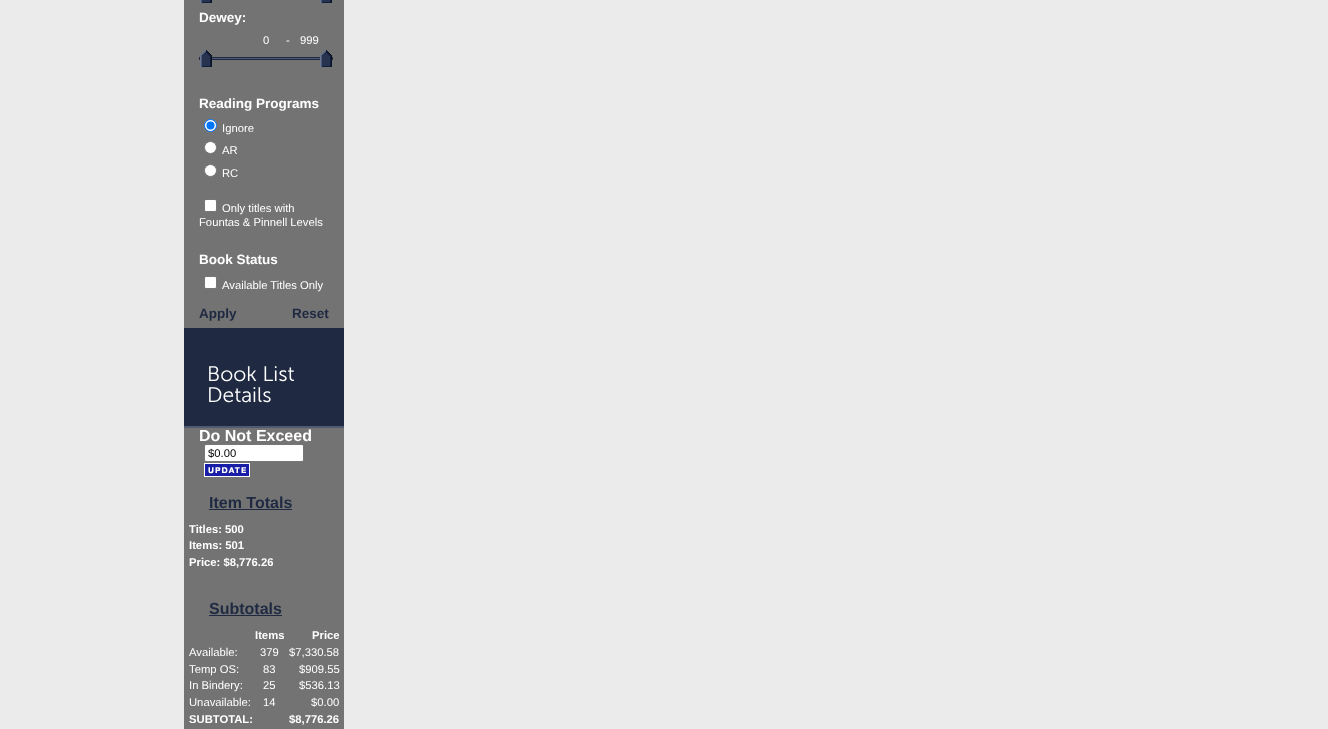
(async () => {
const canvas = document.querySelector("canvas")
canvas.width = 1328
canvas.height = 729
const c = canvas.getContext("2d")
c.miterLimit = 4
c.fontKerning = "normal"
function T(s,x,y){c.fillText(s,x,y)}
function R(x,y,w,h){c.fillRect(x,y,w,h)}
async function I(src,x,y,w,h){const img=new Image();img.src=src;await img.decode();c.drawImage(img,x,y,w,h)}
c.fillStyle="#ebebeb"
R(0,0,1328,729)
c.fillStyle="#737373"
R(184,0,160,729)
await I("1.png",200,0,12,3)
await I("1.png",320,0,12,3)
c.font="bold 13.5px Liberation Sans"
c.fillStyle="#fff"
T("Dewey:",199,22)
c.font="11.25px Liberation Sans"
T("0",263,44)
T("-",286,44)
T("999",300,44)
c.fillStyle="#4f5a73"
R(212,58,108,1)
c.strokeStyle="#1f2a42"
c.strokeRect(199.5,57.5,133,2)
await I("2.png",200,50,12,17)
await I("2.png",320,50,12,17)
c.font="bold 13.5px Liberation Sans"
c.fillStyle="#fff"
T("Reading Programs",199,108)
c.beginPath()
c.arc(210.5,125.5,6,0,7)
c.fill()
c.strokeStyle="#0075ff"
c.stroke()
c.fillStyle="#0075ff"
c.beginPath()
c.arc(210.5,125.5,4,0,7)
c.fill()
c.font="11.25px Liberation Sans"
c.fillStyle="#fff"
T("Ignore",222,132)
c.beginPath()
c.arc(210.5,147.5,6,0,7)
c.fill()
c.strokeStyle="#767676"
c.stroke()
T("AR",222,154)
c.beginPath()
c.arc(210.5,170.5,6,0,7)
c.fill()
c.stroke()
T("RC",222,177)
c.beginPath()
c.roundRect(204.5,199.5,12,12,1.5)
c.fill()
c.stroke()
T("Only titles with",222,212)
T("Fountas & Pinnell Levels",199,226)
c.font="bold 13.5px Liberation Sans"
T("Book Status",199,264)
c.beginPath()
c.roundRect(204.5,276.5,12,12,1.5)
c.fill()
c.stroke()
c.font="11.25px Liberation Sans"
T("Available Titles Only",222,289)
c.font="bold 13.5px Liberation Sans"
c.fillStyle="#1f2a42"
T("Apply",199,318)
T("Reset",292,318)
R(184,328,160,98)
c.fillStyle="#4f5a73"
R(184,426,160,2)
c.font="300 21px 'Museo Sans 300'"
c.fillStyle="#fff"
T("Book List",207,381)
T("Details",207,402)
c.font="bold 16px Liberation Sans"
T("Do Not Exceed",199,441)
c.beginPath()
c.roundRect(204.5,444.5,99,17,1.5)
c.fill()
c.stroke()
c.font="11.25px Liberation Sans"
c.fillStyle="#000"
T("$0.00",208,457)
await I("3.png",204,463,46,14)
c.font="bold 16px Liberation Sans"
c.fillStyle="#1f2a42"
T("Item Totals",209,508)
R(209,509,83,1)
c.font="bold 11.25px Liberation Sans"
c.fillStyle="#fff"
T("Titles: 500",189,533)
T("Items: 501",189,549)
T("Price: $8,776.26",189,566)
c.font="bold 16px Liberation Sans"
c.fillStyle="#1f2a42"
T("Subtotals",209,614)
R(209,615,73,1)
c.font="bold 11.25px Liberation Sans"
c.fillStyle="#fff"
T("Items",255,639)
T("Price",312,639)
c.font="11.25px Liberation Sans"
T("Available:",189,656)
T("379",260,656)
T("$7,330.58",289,656)
T("Temp OS:",189,673)
T("83",263,673)
T("$909.55",299,673)
T("In Bindery:",189,689)
T("25",263,689)
T("$536.13",299,689)
T("Unavailable:",189,706)
T("14",263,706)
T("$0.00",311,706)
c.font="bold 11.25px Liberation Sans"
T("SUBTOTAL:",189,723)
T("$8,776.26",289,723)
})()
